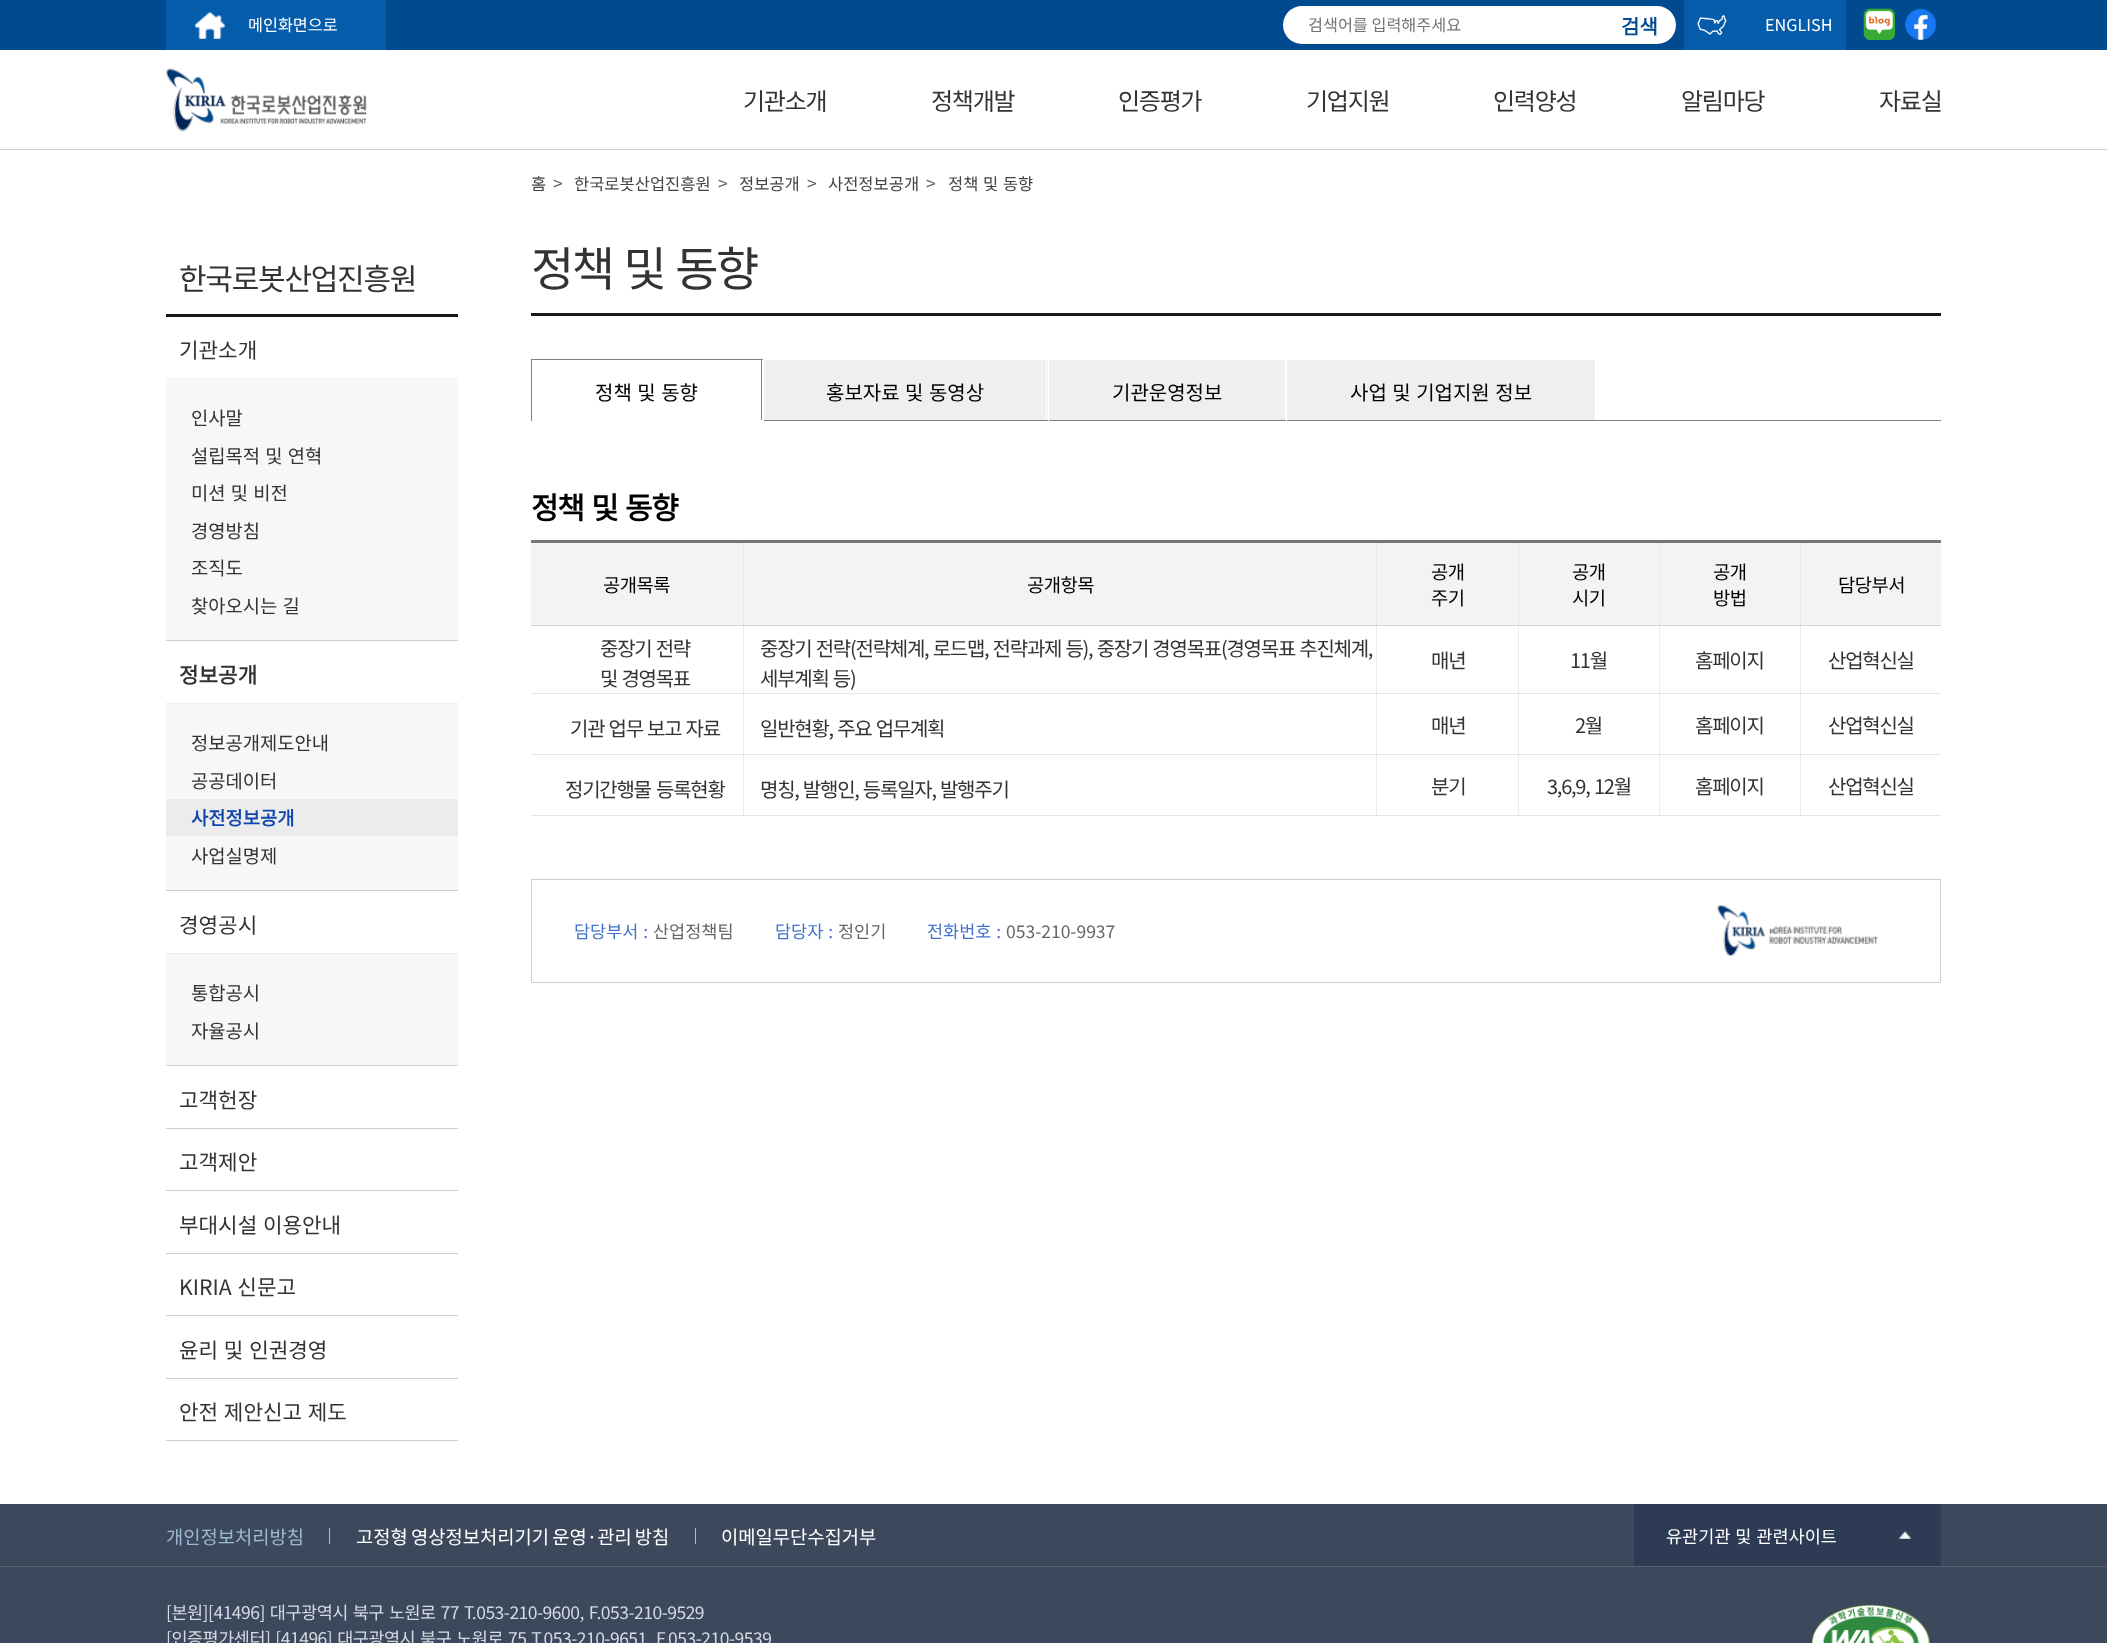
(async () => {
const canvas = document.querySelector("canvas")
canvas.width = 2107
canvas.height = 1643
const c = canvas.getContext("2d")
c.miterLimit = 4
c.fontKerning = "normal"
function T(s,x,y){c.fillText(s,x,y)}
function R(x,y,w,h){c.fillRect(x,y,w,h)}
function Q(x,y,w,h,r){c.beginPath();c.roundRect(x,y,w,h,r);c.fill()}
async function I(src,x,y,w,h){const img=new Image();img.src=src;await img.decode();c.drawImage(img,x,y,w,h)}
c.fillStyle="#fff"
R(0,0,2107,1643)
c.fillStyle="#004a8f"
R(0,0,2107,50)
c.fillStyle="#055cab"
R(166,0,220,50)
await I("1.png",195,12,30,27)
c.font="100 16.25px Noto Sans KR"
c.fillStyle="#fff"
T("메인화면으로",248,31)
Q(1283,6,393,38,19)
c.fillStyle="#757575"
T("검색어를 입력해주세요",1308,31)
c.font="bold 20px Noto Sans KR"
c.fillStyle="#004a8f"
T("검색",1621,34)
c.fillStyle="#055cab"
R(1684,0,162,50)
await I("2.png",1697,15,30,20)
c.font="100 16.25px Noto Sans KR"
c.fillStyle="#fff"
T("ENGLISH",1765,31)
await I("3.png",1863,8,32,32)
await I("4.png",1905,8,32,32)
await I("5.png",166,68,201,64)
c.letterSpacing="-1.25px"
c.font="100 24px Noto Sans KR"
c.fillStyle="#333"
T("기관소개",743,110)
T("정책개발",931,110)
T("인증평가",1118,110)
T("기업지원",1306,110)
T("인력양성",1493,110)
T("알림마당",1681,110)
T("자료실",1879,110)
c.fillStyle="#cfcece"
R(0,149,2107,1)
c.letterSpacing="0px"
c.font="100 16.5px Noto Sans KR"
c.fillStyle="#444"
T("홈",531,190)
c.font="100 17.5px Noto Sans KR"
c.fillStyle="#666"
T(">",553,190)
c.font="100 16.5px Noto Sans KR"
c.fillStyle="#444"
T("한국로봇산업진흥원",574,190)
c.font="100 17.5px Noto Sans KR"
c.fillStyle="#666"
T(">",718,190)
c.font="100 16.5px Noto Sans KR"
c.fillStyle="#444"
T("정보공개",739,190)
c.font="100 17.5px Noto Sans KR"
c.fillStyle="#666"
T(">",807,190)
c.font="100 16.5px Noto Sans KR"
c.fillStyle="#444"
T("사전정보공개",828,190)
c.font="100 17.5px Noto Sans KR"
c.fillStyle="#666"
T(">",926,190)
c.wordSpacing="1px"
c.font="100 16.5px Noto Sans KR"
c.fillStyle="#444"
T("정책 및 동향",948,190)
c.letterSpacing="-1.25px"
c.wordSpacing="0px"
c.font="100 30px Noto Sans KR"
c.fillStyle="#333"
T("한국로봇산업진흥원",179,290)
c.fillStyle="#181818"
R(166,314,292,3)
c.fillStyle="#eee"
R(166,378,292,1)
c.letterSpacing="0px"
c.font="100 21.25px Noto Sans KR"
c.fillStyle="#333"
T("기관소개",179,358)
c.fillStyle="#f7f7f7"
R(166,379,292,261)
c.fillStyle="#cfcece"
R(166,640,292,1)
c.font="100 18.75px Noto Sans KR"
c.fillStyle="#333"
T("인사말",191,425)
c.wordSpacing="1px"
T("설립목적 및 연혁",191,463)
T("미션 및 비전",191,500)
c.wordSpacing="0px"
T("경영방침",191,538)
T("조직도",191,575)
c.wordSpacing="1px"
T("찾아오시는 길",191,613)
c.fillStyle="#eee"
R(166,703,292,1)
c.wordSpacing="0px"
c.font="bold 21.25px Noto Sans KR"
c.fillStyle="#333"
T("정보공개",179,683)
c.fillStyle="#f7f7f7"
R(166,704,292,186)
c.fillStyle="#cfcece"
R(166,890,292,1)
c.font="100 18.75px Noto Sans KR"
c.fillStyle="#333"
T("정보공개제도안내",191,750)
T("공공데이터",191,788)
c.fillStyle="#ececec"
R(166,799,292,37)
c.font="bold 18.75px Noto Sans KR"
c.fillStyle="#1047ae"
T("사전정보공개",191,825)
c.font="100 18.75px Noto Sans KR"
c.fillStyle="#333"
T("사업실명제",191,863)
c.fillStyle="#eee"
R(166,953,292,1)
c.font="100 21.25px Noto Sans KR"
c.fillStyle="#333"
T("경영공시",179,933)
c.fillStyle="#f7f7f7"
R(166,954,292,111)
c.fillStyle="#cfcece"
R(166,1065,292,1)
c.font="100 18.75px Noto Sans KR"
c.fillStyle="#333"
T("통합공시",191,1000)
T("자율공시",191,1038)
c.fillStyle="#cfcece"
R(166,1128,292,1)
c.font="100 21.25px Noto Sans KR"
c.fillStyle="#333"
T("고객헌장",179,1108)
c.fillStyle="#cfcece"
R(166,1190,292,1)
c.fillStyle="#333"
T("고객제안",179,1170)
c.fillStyle="#cfcece"
R(166,1253,292,1)
c.wordSpacing="1px"
c.fillStyle="#333"
T("부대시설 이용안내",179,1233)
c.fillStyle="#cfcece"
R(166,1315,292,1)
c.fillStyle="#333"
T("KIRIA 신문고",179,1295)
c.fillStyle="#cfcece"
R(166,1378,292,1)
c.fillStyle="#333"
T("윤리 및 인권경영",179,1358)
c.fillStyle="#cfcece"
R(166,1440,292,1)
c.fillStyle="#333"
T("안전 제안신고 제도",179,1420)
c.letterSpacing="-2.5px"
c.wordSpacing="3px"
c.font="100 47px Noto Sans KR"
T("정책 및 동향",531,286)
c.fillStyle="#181818"
R(531,313,1410,3)
c.fillStyle="#808080"
R(1596,420,345,1)
R(531,359,232,1)
R(761,359,1,62)
c.fillStyle="#fff"
R(761,420,2,1)
c.fillStyle="#808080"
R(531,359,1,62)
c.letterSpacing="0px"
c.wordSpacing="1px"
c.font="100 20px Noto Sans KR"
c.fillStyle="#000"
T("정책 및 동향",595,400)
c.fillStyle="#efefef"
R(764,360,284,60)
c.fillStyle="#fff"
R(1046,359,1,62)
c.fillStyle="#808080"
R(763,420,833,1)
c.fillStyle="#fff"
R(763,420,1,1)
c.fillStyle="#000"
T("홍보자료 및 동영상",826,400)
c.fillStyle="#efefef"
R(1049,360,236,60)
c.fillStyle="#fff"
R(1048,420,1,1)
c.wordSpacing="0px"
c.fillStyle="#000"
T("기관운영정보",1112,400)
c.fillStyle="#efefef"
R(1287,360,308,60)
c.fillStyle="#fff"
R(1286,420,1,1)
c.wordSpacing="1px"
c.fillStyle="#000"
T("사업 및 기업지원 정보",1350,400)
c.letterSpacing="-1.25px"
c.wordSpacing="2px"
c.font="bold 30px Noto Sans KR"
T("정책 및 동향",531,519)
c.fillStyle="#f3f3f3"
R(744,543,774,82)
c.fillStyle="#d1d1d1"
R(1800,625,141,1)
c.fillStyle="#e8e8e8"
R(1800,541,1,85)
c.fillStyle="#d1d1d1"
R(1659,625,142,1)
c.fillStyle="#e8e8e8"
R(1659,541,1,85)
c.fillStyle="#d1d1d1"
R(1518,625,142,1)
c.fillStyle="#e8e8e8"
R(1518,541,1,85)
c.fillStyle="#d1d1d1"
R(1376,625,143,1)
c.fillStyle="#e8e8e8"
R(1376,541,1,85)
c.fillStyle="#d1d1d1"
R(743,625,635,1)
c.fillStyle="#e8e8e8"
R(743,541,1,85)
c.fillStyle="#777"
R(531,540,1410,3)
c.fillStyle="#f3f3f3"
R(531,543,212,82)
c.fillStyle="#d1d1d1"
R(531,625,213,1)
c.letterSpacing="-0.5px"
c.wordSpacing="0px"
c.font="100 18.75px Noto Sans KR"
c.fillStyle="#000"
T("공개목록",603,592)
T("공개항목",1027,592)
T("공개",1431,579)
T("주기",1431,605)
c.fillStyle="#f3f3f3"
R(1519,543,140,82)
c.fillStyle="#000"
T("공개",1572,579)
T("시기",1572,605)
c.fillStyle="#f3f3f3"
R(1660,543,140,82)
c.fillStyle="#000"
T("공개",1713,579)
T("방법",1713,605)
c.fillStyle="#f3f3f3"
R(1801,543,140,82)
c.fillStyle="#000"
T("담당부서",1838,592)
c.fillStyle="#e5e5e5"
R(1800,815,141,1)
c.fillStyle="#ececec"
R(1800,754,1,62)
c.fillStyle="#e5e5e5"
R(1800,754,141,1)
c.fillStyle="#ececec"
R(1800,693,1,62)
c.fillStyle="#e5e5e5"
R(1800,693,141,1)
c.fillStyle="#ececec"
R(1800,626,1,68)
c.fillStyle="#e5e5e5"
R(1659,815,142,1)
c.fillStyle="#ececec"
R(1659,754,1,62)
c.fillStyle="#e5e5e5"
R(1659,754,142,1)
c.fillStyle="#ececec"
R(1659,693,1,62)
c.fillStyle="#e5e5e5"
R(1659,693,142,1)
c.fillStyle="#ececec"
R(1659,626,1,68)
c.fillStyle="#e5e5e5"
R(1518,815,142,1)
c.fillStyle="#ececec"
R(1518,754,1,62)
c.fillStyle="#e5e5e5"
R(1518,754,142,1)
c.fillStyle="#ececec"
R(1518,693,1,62)
c.fillStyle="#e5e5e5"
R(1518,693,142,1)
c.fillStyle="#ececec"
R(1518,626,1,68)
c.fillStyle="#e5e5e5"
R(1376,815,143,1)
c.fillStyle="#ececec"
R(1376,754,1,62)
c.fillStyle="#e5e5e5"
R(1376,754,143,1)
c.fillStyle="#ececec"
R(1376,693,1,62)
c.fillStyle="#e5e5e5"
R(1376,693,143,1)
c.fillStyle="#ececec"
R(1376,626,1,68)
c.fillStyle="#e5e5e5"
R(743,815,635,1)
c.fillStyle="#ececec"
R(743,754,1,62)
c.fillStyle="#e5e5e5"
R(743,754,635,1)
c.fillStyle="#ececec"
R(743,693,1,62)
c.fillStyle="#e5e5e5"
R(743,693,635,1)
c.fillStyle="#ececec"
R(743,626,1,68)
c.fillStyle="#e5e5e5"
R(531,693,213,1)
c.letterSpacing="-1.25px"
c.wordSpacing="1px"
c.font="100 20px Noto Sans KR"
c.fillStyle="#333"
T("중장기 전략",600,656)
T("및 경영목표",600,686)
T("중장기 전략(전략체계, 로드맵, 전략과제 등), 중장기 경영목표(경영목표 추진체계,",760,656)
T("세부계획 등)",760,686)
c.wordSpacing="0px"
T("매년",1431,668)
T("11월",1570,668)
T("홈페이지",1695,668)
T("산업혁신실",1828,668)
c.fillStyle="#e5e5e5"
R(531,754,213,1)
c.wordSpacing="1px"
c.fillStyle="#333"
T("기관 업무",570,736)
T("보고 자료",647,736)
T("일반현황, 주요 업무계획",760,736)
c.wordSpacing="0px"
T("매년",1431,733)
T("2월",1575,733)
T("홈페이지",1695,733)
T("산업혁신실",1828,733)
c.fillStyle="#e5e5e5"
R(531,815,213,1)
c.fillStyle="#333"
T("정기간행물",565,797)
T("등록현황",656,797)
c.wordSpacing="1px"
T("명칭, 발행인, 등록일자, 발행주기",760,797)
c.wordSpacing="0px"
T("분기",1431,794)
T("3,6,9,",1547,794)
T("12월",1594,794)
T("홈페이지",1695,794)
T("산업혁신실",1828,794)
c.strokeStyle="#cfcece"
c.strokeRect(531.5,879.5,1409,103)
c.letterSpacing="0px"
c.wordSpacing="1px"
c.font="100 17.5px Noto Sans KR"
c.fillStyle="#4272cd"
T("담당부서 :",574,938)
c.wordSpacing="0px"
c.fillStyle="#666"
T("산업정책팀",653,938)
c.wordSpacing="1px"
c.fillStyle="#4272cd"
T("담당자 :",775,938)
c.wordSpacing="0px"
c.fillStyle="#666"
T("정인기",838,938)
c.wordSpacing="1px"
c.fillStyle="#4272cd"
T("전화번호 :",927,938)
c.wordSpacing="0px"
c.fillStyle="#666"
T("053-210-9937",1006,938)
await I("6.png",1717,905,161,51)
c.fillStyle="#3c485c"
R(0,1504,2107,139)
c.fillStyle="#586273"
R(0,1566,2107,1)
c.font="100 18.75px Noto Sans KR"
c.fillStyle="#9bb9d4"
T("개인정보처리방침",166,1544)
c.fillStyle="#bbb"
R(329,1528,1,16)
c.wordSpacing="-1px"
c.fillStyle="#fff"
T("고정형 영상정보처리기기 운영·관리 방침",356,1544)
c.fillStyle="#bbb"
R(695,1528,1,16)
c.wordSpacing="0px"
c.fillStyle="#fff"
T("이메일무단수집거부",721,1544)
c.fillStyle="#2d3c54"
R(1634,1504,307,62)
await I("7.png",1898,1531,14,8)
c.wordSpacing="1px"
c.font="100 17.5px Noto Sans KR"
c.fillStyle="#fff"
T("유관기관 및 관련사이트",1666,1543)
c.letterSpacing="-0.5px"
c.wordSpacing="1.5px"
c.fillStyle="#d5dae2"
T("[본원][41496] 대구광역시 북구 노원로 77 T.053-210-9600, F.053-210-9529",166,1619)
T("[인증평가센터] [41496] 대구광역시 북구 노원로 75 T.053-210-9651, F.053-210-9539",166,1645)
await I("8.png",1811,1605,119,38)
})()
